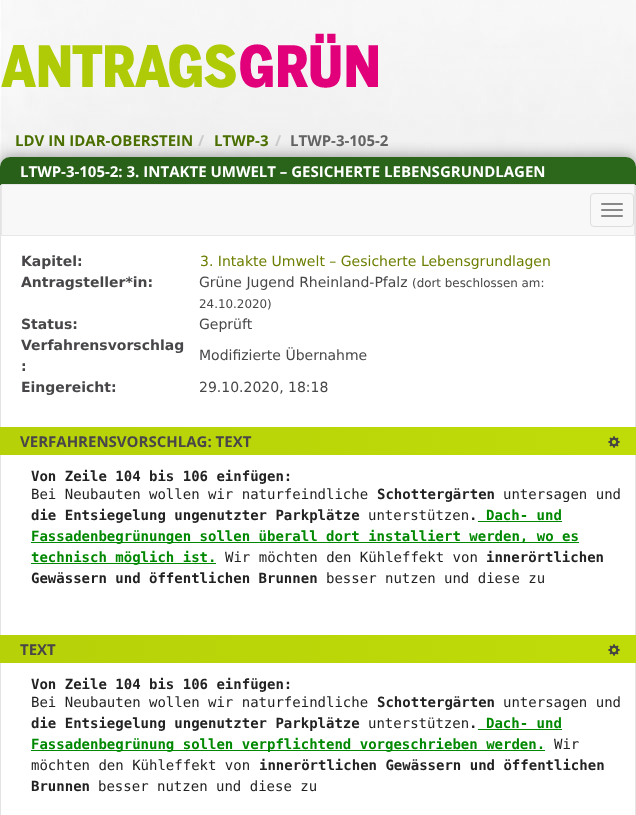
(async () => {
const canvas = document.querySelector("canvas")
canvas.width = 636
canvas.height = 815
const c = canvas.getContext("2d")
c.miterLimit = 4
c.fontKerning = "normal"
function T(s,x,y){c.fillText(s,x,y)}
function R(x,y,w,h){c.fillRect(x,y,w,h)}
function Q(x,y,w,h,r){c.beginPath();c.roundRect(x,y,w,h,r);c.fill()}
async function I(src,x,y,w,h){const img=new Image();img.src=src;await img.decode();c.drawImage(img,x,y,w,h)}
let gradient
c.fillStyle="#fff"
R(0,0,636,815)
await I("1.png",0,0,636,167)
await I("2.png",0,0,636,167)
await I("3.png",1,33,377,55)
c.font="bold 15px Open Sans"
c.fillStyle="#4b7000"
T("LDV IN IDAR-OBERSTEIN",15,146)
c.fillStyle="#ccc"
T("/",198,146)
c.fillStyle="#4b7000"
T("LTWP-3",214,146)
c.fillStyle="#ccc"
T("/",275,146)
c.fillStyle="#646464"
T("LTWP-3-105-2",290,146)
c.fillStyle="#00000066"
c.filter="blur(7.5px)"
c.beginPath()
c.roundRect(0,157,636,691,10)
c.fill()
c.filter="none"
c.fillStyle="#fff"
c.beginPath()
c.roundRect(.5,157.5,635,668,9.5)
c.fill()
c.strokeStyle="#e3e3e3"
c.stroke()
gradient = c.createLinearGradient(0,171,636,171)
gradient.addColorStop(0,"#285f19")
gradient.addColorStop(1,"#2c681b")
c.fillStyle = gradient
c.beginPath()
c.roundRect(0,157,636,28,[10,10,0,0])
c.fill()
c.fillStyle="#fff"
T("LTWP-3-105-2: 3. INTAKTE UMWELT – GESICHERTE LEBENSGRUNDLAGEN",20,177)
c.fillStyle="#f8f8f8"
c.beginPath()
c.rect(1.5,184.5,633,51)
c.fill()
c.strokeStyle="#e7e7e7"
c.stroke()
c.beginPath()
c.roundRect(590.5,193.5,43,33,3.5)
c.strokeStyle="#ddd"
c.stroke()
c.fillStyle="#888"
Q(601,203,22,2,1)
Q(601,209,22,2,1)
Q(601,215,22,2,1)
c.font="bold 14px DejaVu Sans"
c.fillStyle="#484649"
T("Kapitel:",21,266)
c.font="14px DejaVu Sans"
c.fillStyle="#6d7e00"
T("3. Intakte Umwelt – Gesicherte Lebensgrundlagen",200,266)
c.font="bold 14px DejaVu Sans"
c.fillStyle="#484649"
T("Antragsteller*in:",21,287)
c.font="14px DejaVu Sans"
T("Grüne Jugend Rheinland-Pfalz",199,287)
c.font="11.9px DejaVu Sans"
T("(dort beschlossen am:",412,287)
T("24.10.2020)",199,308)
c.font="bold 14px DejaVu Sans"
T("Status:",21,329)
c.font="14px DejaVu Sans"
T("Geprüft",199,329)
c.font="bold 14px DejaVu Sans"
T("Verfahrensvorschlag",21,350)
T(":",21,371)
c.font="14px DejaVu Sans"
T("Modifizierte Übernahme",199,360)
c.font="bold 14px DejaVu Sans"
T("Eingereicht:",21,392)
c.font="14px DejaVu Sans"
T("29.10.2020, 18:18",199,392)
gradient = c.createLinearGradient(0,441,636,441)
gradient.addColorStop(0,"#b6d108")
gradient.addColorStop(1,"#c0dc08")
c.fillStyle = gradient
R(0,427,636,28)
c.font="bold 15px Open Sans"
c.fillStyle="#484649"
T("VERFAHRENSVORSCHLAG: TEXT",20,447)
await I("4.png",608,436,12,12)
c.font="bold 14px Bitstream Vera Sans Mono"
c.fillStyle="#222"
T("Von Zeile 104 bis 106 einfügen:",31,481)
c.font="14px Bitstream Vera Sans Mono"
T("Bei Neubauten wollen wir naturfeindliche",31,499)
c.font="bold 14px Bitstream Vera Sans Mono"
T("Schottergärten",377,499)
c.font="14px Bitstream Vera Sans Mono"
T("untersagen und",503,499)
c.font="bold 14px Bitstream Vera Sans Mono"
T("die Entsiegelung ungenutzter Parkplätze",31,520)
c.font="14px Bitstream Vera Sans Mono"
T("unterstützen",368,520)
c.font="bold 14px Bitstream Vera Sans Mono"
T(".",469,520)
c.fillStyle="#080"
T("Dach- und",486,520)
R(478,521,84,1)
R(31,542,548,1)
T("Fassadenbegrünungen sollen überall dort installiert werden, wo es",31,541)
R(31,563,185,1)
T("technisch möglich ist.",31,562)
c.font="14px Bitstream Vera Sans Mono"
c.fillStyle="#222"
T("Wir möchten den Kühleffekt von",225,562)
c.font="bold 14px Bitstream Vera Sans Mono"
T("innerörtlichen",486,562)
T("Gewässern und öffentlichen Brunnen",31,583)
c.font="14px Bitstream Vera Sans Mono"
T("besser nutzen und diese zu",326,583)
gradient = c.createLinearGradient(0,649,636,649)
gradient.addColorStop(0,"#b6d108")
gradient.addColorStop(1,"#c0dc08")
c.fillStyle = gradient
R(0,635,636,28)
c.font="bold 15px Open Sans"
c.fillStyle="#484649"
T("TEXT",20,655)
await I("4.png",608,644,12,12)
c.font="bold 14px Bitstream Vera Sans Mono"
c.fillStyle="#222"
T("Von Zeile 104 bis 106 einfügen:",31,689)
c.font="14px Bitstream Vera Sans Mono"
T("Bei Neubauten wollen wir naturfeindliche",31,707)
c.font="bold 14px Bitstream Vera Sans Mono"
T("Schottergärten",377,707)
c.font="14px Bitstream Vera Sans Mono"
T("untersagen und",503,707)
c.font="bold 14px Bitstream Vera Sans Mono"
T("die Entsiegelung ungenutzter Parkplätze",31,728)
c.font="14px Bitstream Vera Sans Mono"
T("unterstützen",368,728)
c.font="bold 14px Bitstream Vera Sans Mono"
T(".",469,728)
c.fillStyle="#080"
R(478,729,84,1)
T("Dach- und",486,728)
R(31,750,514,1)
T("Fassadenbegrünung sollen verpflichtend vorgeschrieben werden.",31,749)
c.font="14px Bitstream Vera Sans Mono"
c.fillStyle="#222"
T("Wir",554,749)
T("möchten den Kühleffekt von",31,770)
c.font="bold 14px Bitstream Vera Sans Mono"
T("innerörtlichen Gewässern und öffentlichen",259,770)
T("Brunnen",31,791)
c.font="14px Bitstream Vera Sans Mono"
T("besser nutzen und diese zu",98,791)
})()
